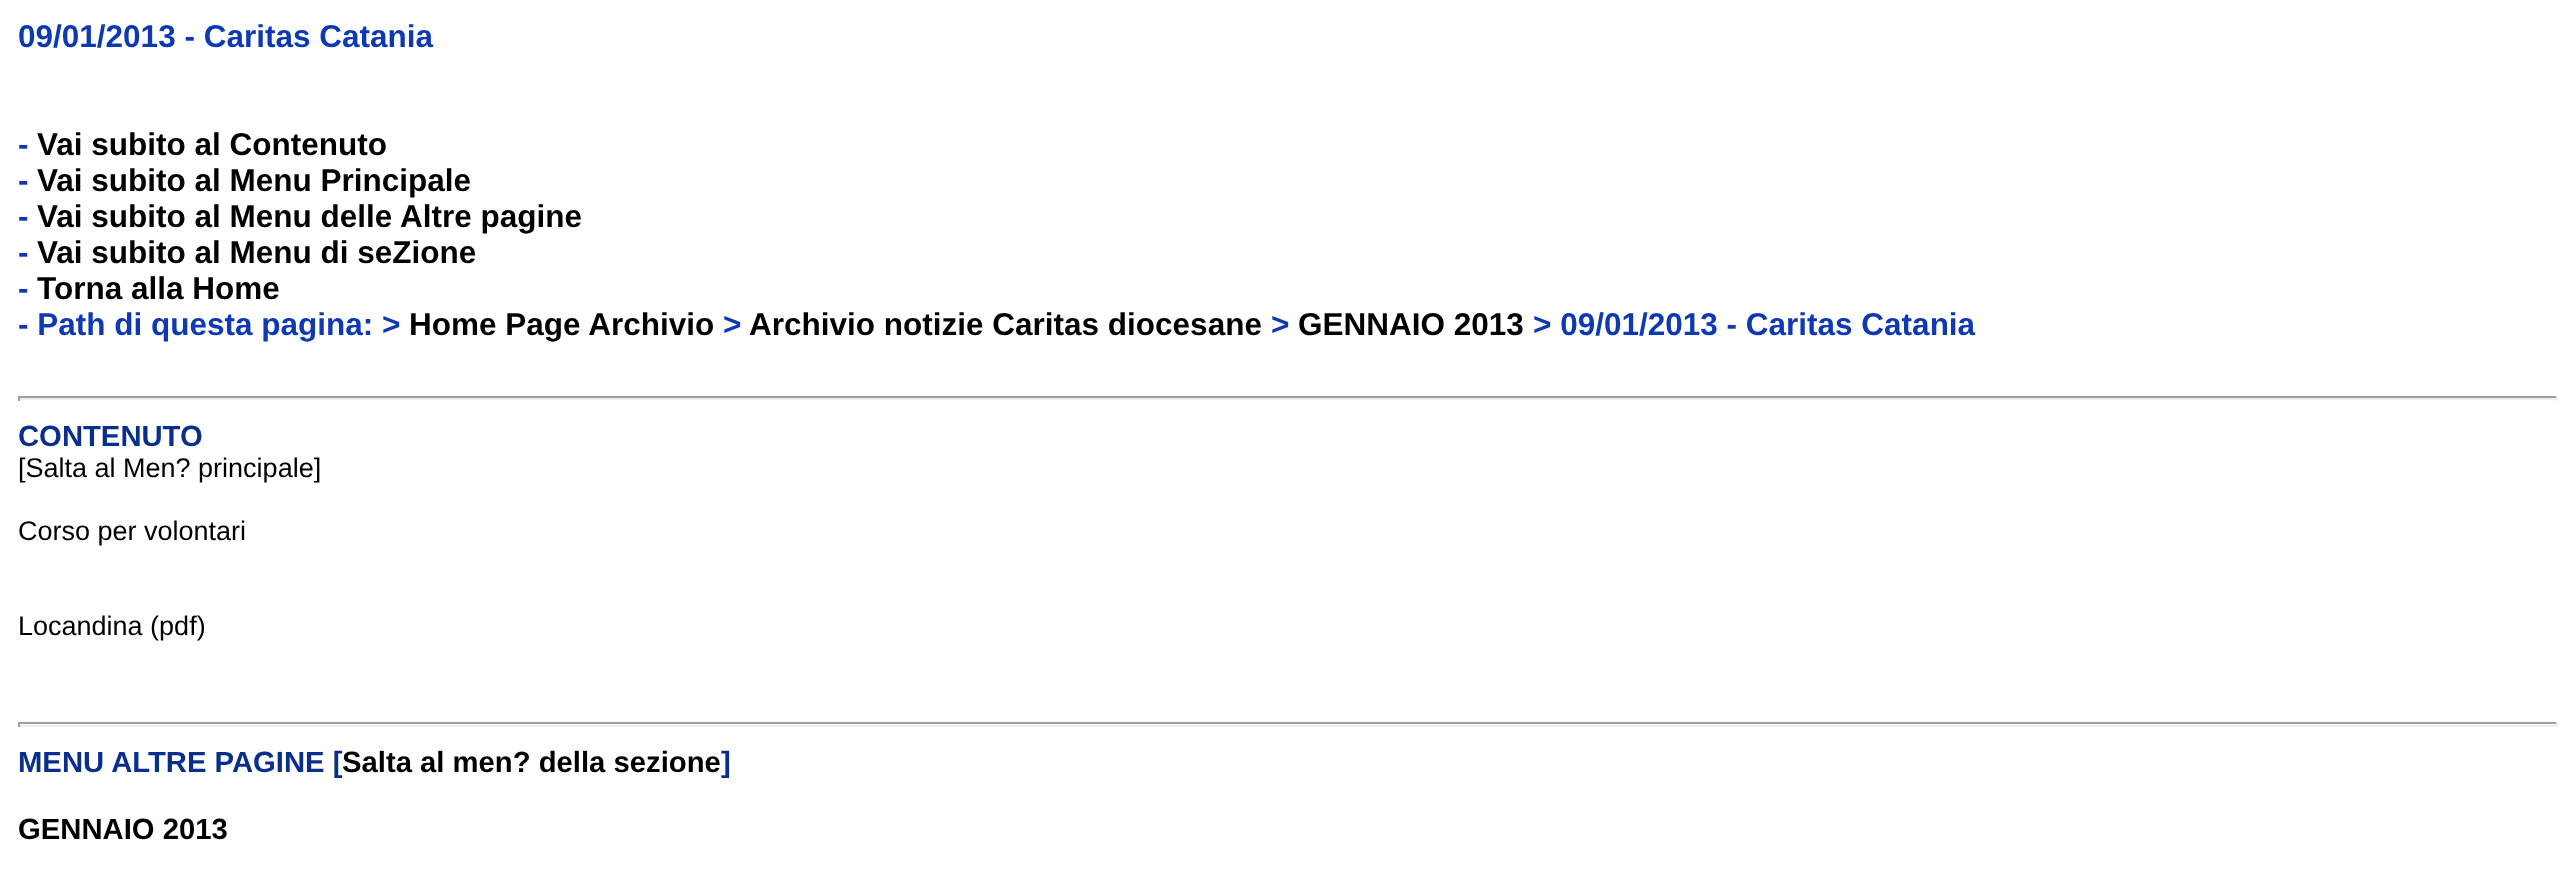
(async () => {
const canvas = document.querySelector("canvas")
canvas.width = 2575
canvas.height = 896
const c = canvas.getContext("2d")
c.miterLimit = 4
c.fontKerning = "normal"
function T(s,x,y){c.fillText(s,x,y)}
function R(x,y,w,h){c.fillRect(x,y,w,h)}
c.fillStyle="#fff"
R(0,0,2575,896)
c.font="bold 31.5px Liberation Sans"
c.fillStyle="#0e39b3"
T("09/01/2013 - Caritas Catania",18,47)
T("-",18,155)
c.fillStyle="#000"
T("Vai subito al Contenuto",37,155)
c.fillStyle="#0e39b3"
T("-",18,191)
c.fillStyle="#000"
T("Vai subito al Menu Principale",37,191)
c.fillStyle="#0e39b3"
T("-",18,227)
c.fillStyle="#000"
T("Vai subito al Menu delle Altre pagine",37,227)
c.fillStyle="#0e39b3"
T("-",18,263)
c.fillStyle="#000"
T("Vai subito al Menu di seZione",37,263)
c.fillStyle="#0e39b3"
T("-",18,299)
c.fillStyle="#000"
T("Torna alla Home",37,299)
c.fillStyle="#0e39b3"
T("- Path di questa pagina: >",18,335)
c.fillStyle="#000"
T("Home Page Archivio",409,335)
c.fillStyle="#0e39b3"
T(">",723,335)
c.fillStyle="#000"
T("Archivio notizie Caritas diocesane",749,335)
c.fillStyle="#0e39b3"
T(">",1271,335)
c.fillStyle="#000"
T("GENNAIO 2013",1298,335)
c.fillStyle="#0e39b3"
T("> 09/01/2013 - Caritas Catania",1533,335)
c.fillStyle="#9f9f9f"
R(18,396,2540,2)
c.fillStyle="#eee"
R(2556,396,2,5)
R(18,398,2540,2)
c.fillStyle="#9f9f9f"
R(18,396,2,5)
c.font="bold 29.25px Liberation Sans"
c.fillStyle="#092f8d"
T("CONTENUTO",18,446)
c.font="27px Liberation Sans"
c.fillStyle="#000"
T("[Salta al Men? principale]",18,477)
T("Corso per volontari",18,540)
T("Locandina (pdf)",18,635)
c.fillStyle="#9f9f9f"
R(18,722,2540,2)
c.fillStyle="#eee"
R(2556,722,2,5)
R(18,725,2540,2)
c.fillStyle="#9f9f9f"
R(18,722,2,5)
c.font="bold 29.25px Liberation Sans"
c.fillStyle="#092f8d"
T("MENU ALTRE PAGINE [",18,772)
c.fillStyle="#000"
T("Salta al men? della sezione",342,772)
c.fillStyle="#092f8d"
T("]",721,772)
c.fillStyle="#000"
T("GENNAIO 2013",18,839)
})()
